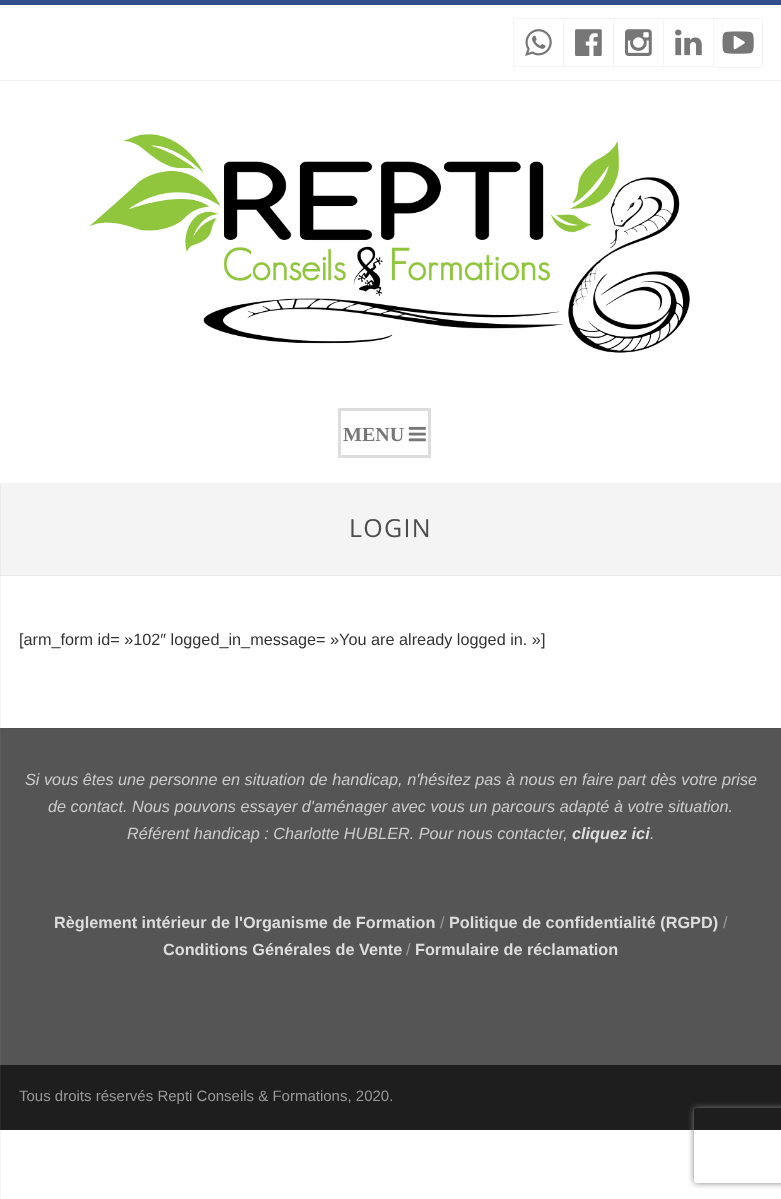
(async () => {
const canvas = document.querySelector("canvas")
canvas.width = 781
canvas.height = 1199
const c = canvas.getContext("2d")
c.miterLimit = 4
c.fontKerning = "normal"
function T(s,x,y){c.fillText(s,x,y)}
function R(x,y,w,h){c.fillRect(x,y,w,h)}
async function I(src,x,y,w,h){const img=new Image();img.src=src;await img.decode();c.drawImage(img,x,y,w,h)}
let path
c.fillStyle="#fff"
R(0,0,781,1199)
c.fillStyle="#f4f4f4"
R(0,484,781,91)
c.fillStyle="#e8e8e8"
R(0,575,781,1)
c.fillStyle="#555"
R(0,729,781,336)
c.fillStyle="#515151"
R(0,728,781,1)
c.fillStyle="#1e1e1e"
R(0,1065,781,65)
c.fillStyle="#9999991a"
c.filter="blur(0.5px)"
c.beginPath()
c.rect(-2,0,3,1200)
c.fill()
c.filter="none"
c.fillStyle="#fff"
R(0,5,1,75)
c.fillStyle="#324e8c"
R(0,0,781,5)
c.fillStyle="#f2f2f2"
R(0,80,781,1)
c.fillStyle="#f6f3f3"
R(513,18,200,1)
R(513,66,200,1)
R(513,18,1,50)
await I("1.png",525,29,27,27)
R(563,18,1,50)
await I("2.png",575,29,27,27)
R(613,18,1,50)
await I("3.png",625,29,27,27)
R(663,18,1,50)
await I("4.png",675,29,27,27)
c.strokeStyle="#f6f3f3"
c.strokeRect(713.5,18.5,49,49)
await I("5.png",722,31,32,23)
c.fillStyle="#fff"
R(0,81,1,402)
c.fillStyle="#f2f2f2"
R(0,483,781,1)
await I("6.png",89,134,601,219)
c.strokeStyle="#ddd"
c.lineWidth=3
c.strokeRect(339.5,409.5,90,47)
c.font="bold 20px Liberation Serif"
c.fillStyle="#777"
T("MENU",343,441)
await I("7.png",408,426,18,16)
c.letterSpacing="1.25px"
c.font="25px Open Sans"
c.fillStyle="#4d4d4d"
T("LOGIN",349,537)
c.letterSpacing="0px"
c.font="16.25px Liberation Sans"
c.fillStyle="#333"
T("[arm_form id= »102″ logged_in_message= »You are already logged in. »]",19,645)
c.font="italic 16.25px Liberation Sans"
c.fillStyle="#ccc"
T("Si vous êtes une personne en situation de handicap, n'hésitez pas à nous en faire part dès votre prise",25,785)
T("de contact. Nous pouvons essayer d'aménager avec vous un parcours adapté à votre situation.",48,812)
T("Référent handicap : Charlotte HUBLER. Pour nous contacter,",127,839)
c.font="italic bold 16.25px Liberation Sans"
c.fillStyle="#ddd"
T("cliquez ici",572,839)
c.font="italic 16.25px Liberation Sans"
c.fillStyle="#ccc"
T(".",650,839)
c.font="bold 16.25px Liberation Sans"
c.fillStyle="#ddd"
T("Règlement intérieur de l'Organisme de Formation",54,928)
c.font="16.25px Liberation Sans"
c.fillStyle="#999"
T("/",440,928)
c.font="bold 16.25px Liberation Sans"
c.fillStyle="#ddd"
T("Politique de confidentialité (RGPD)",449,928)
c.font="16.25px Liberation Sans"
c.fillStyle="#999"
T("/",723,928)
c.font="bold 16.25px Liberation Sans"
c.fillStyle="#ddd"
T("Conditions Générales de Vente",163,955)
c.font="16.25px Liberation Sans"
c.fillStyle="#999"
T("/",406,955)
c.font="bold 16.25px Liberation Sans"
c.fillStyle="#ddd"
T("Formulaire de réclamation",415,955)
c.font="15px Liberation Sans"
c.fillStyle="#999"
T("Tous droits réservés Repti Conseils & Formations, 2020.",19,1101)
c.save()
path = new Path2D("M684 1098h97v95h-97zm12.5 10h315c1.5 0 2.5 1 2.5 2.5v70c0 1.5-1 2.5-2.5 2.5h-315c-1.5 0-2.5-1-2.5-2.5v-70c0-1.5 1-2.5 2.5-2.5z")
c.clip(path,"evenodd")
c.fillStyle="#808080"
c.filter="blur(3px)"
c.beginPath()
c.roundRect(694,1108,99,75,2.5)
c.fill()
c.filter="none"
c.restore()
})()
